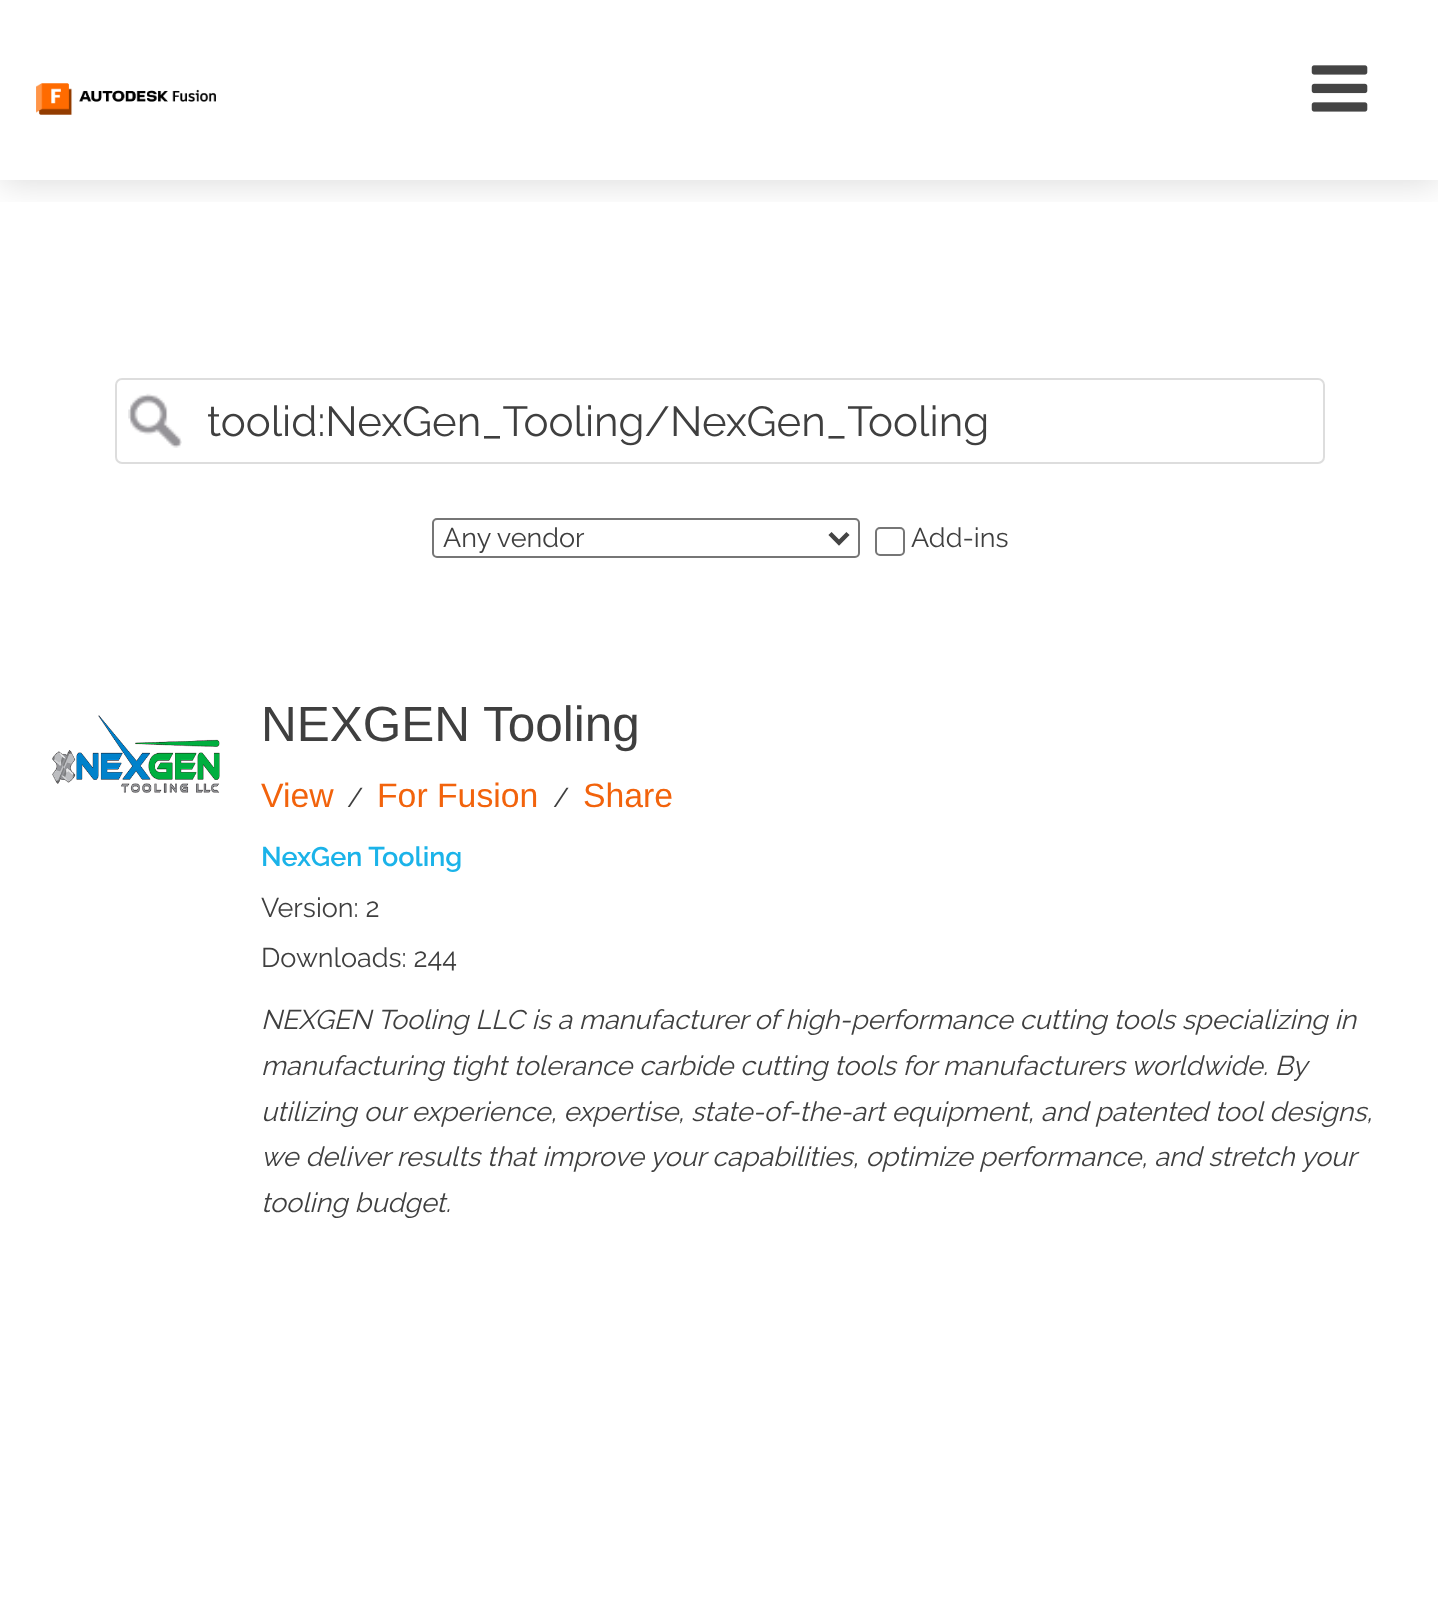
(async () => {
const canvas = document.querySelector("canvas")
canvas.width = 1438
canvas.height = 1616
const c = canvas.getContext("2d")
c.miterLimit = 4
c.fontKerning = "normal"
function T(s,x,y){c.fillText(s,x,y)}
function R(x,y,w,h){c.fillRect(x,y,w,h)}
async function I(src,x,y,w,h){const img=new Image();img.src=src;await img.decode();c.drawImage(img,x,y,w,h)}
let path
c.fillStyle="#fff"
R(0,0,1438,1616)
c.save()
c.beginPath()
c.rect(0,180,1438,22)
c.clip()
c.fillStyle="#00000026"
c.filter="blur(18px)"
c.beginPath()
c.rect(0,2,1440,180)
c.fill()
c.filter="none"
c.restore()
await I("1.png",36,83,180,32)
await I("2.png",1311,65,57,47)
await I("3.png",128,393,54,55)
c.beginPath()
c.roundRect(116,379,1208,84,6)
c.strokeStyle="#ddd"
c.lineWidth=2
c.stroke()
c.font="42px Raleway"
c.fillStyle="#3f3f3f"
T("toolid:NexGen_Tooling/NexGen_Tooling",207,436)
c.beginPath()
c.roundRect(433,519,426,38,4)
c.strokeStyle="#767676"
c.stroke()
path = new Path2D("M830 533.5l9 9l9-9")
c.strokeStyle="#444"
c.lineWidth=4.5
c.stroke(path)
c.font="27px Raleway"
T("Any vendor",443,547)
c.beginPath()
c.roundRect(876,528,28,27,4)
c.strokeStyle="#767676"
c.lineWidth=2
c.stroke()
T("Add-ins",911,547)
await I("4.png",52,715,168,78)
c.font="49.5px Liberation Sans"
T("NEXGEN Tooling",261,741)
c.font="33.75px Liberation Sans"
c.fillStyle="#f2630c"
T("View",261,807)
c.font="27px Raleway"
c.fillStyle="#3f3f3f"
T("/",347,807)
c.font="33.75px Liberation Sans"
c.fillStyle="#f2630c"
T("For Fusion",377,807)
c.font="27px Raleway"
c.fillStyle="#3f3f3f"
T("/",553,807)
c.font="33.75px Liberation Sans"
c.fillStyle="#f2630c"
T("Share",583,807)
c.font="600 27px Raleway"
c.fillStyle="#1bb3e9"
T("NexGen Tooling",261,866)
c.font="27px Raleway"
c.fillStyle="#3f3f3f"
T("Version: 2",261,917)
T("Downloads: 244",261,967)
c.font="italic 27px Raleway"
T("NEXGEN Tooling LLC is a manufacturer of high-performance cutting tools specializing in",261,1029)
T("manufacturing tight tolerance carbide cutting tools for manufacturers worldwide. By",261,1075)
T("utilizing our experience, expertise, state-of-the-art equipment, and patented tool designs,",261,1121)
T("we deliver results that improve your capabilities, optimize performance, and stretch your",261,1166)
T("tooling budget.",261,1212)
})()
